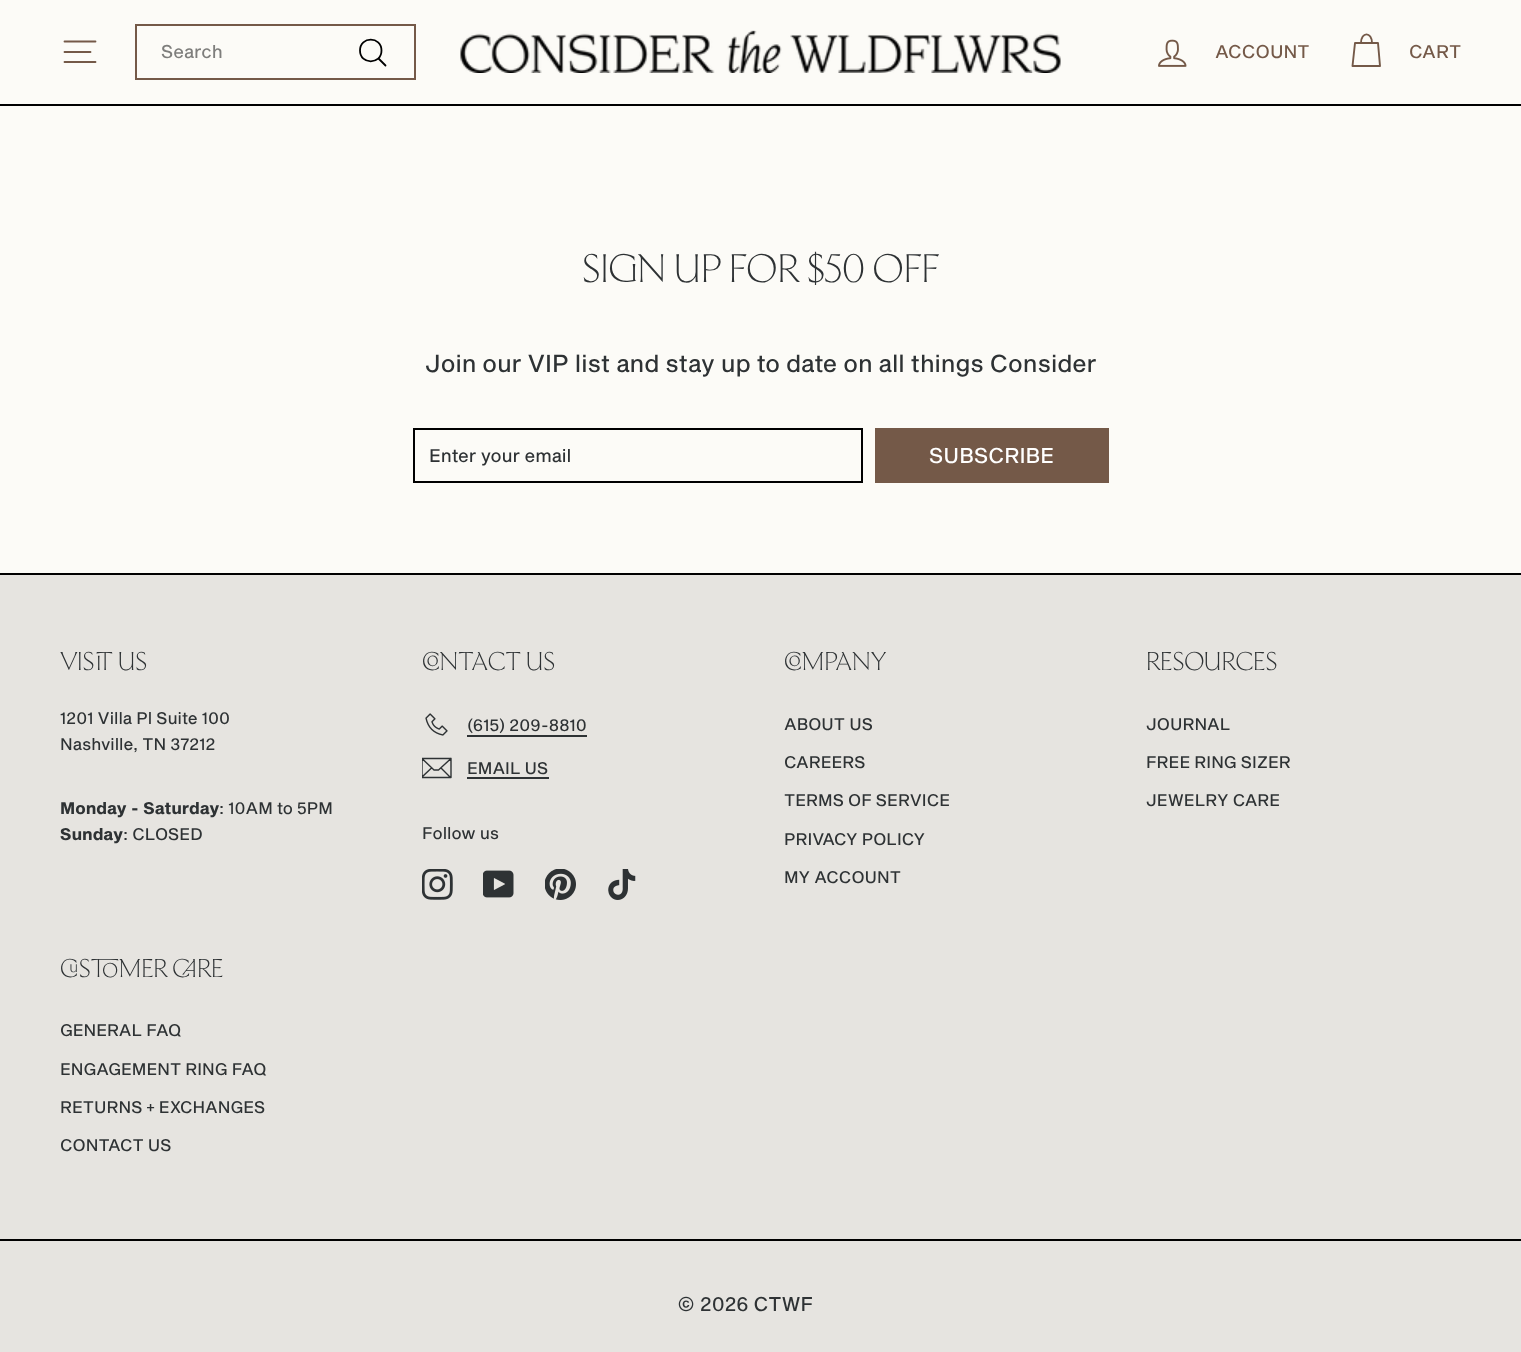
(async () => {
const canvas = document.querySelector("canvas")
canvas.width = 1521
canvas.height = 1352
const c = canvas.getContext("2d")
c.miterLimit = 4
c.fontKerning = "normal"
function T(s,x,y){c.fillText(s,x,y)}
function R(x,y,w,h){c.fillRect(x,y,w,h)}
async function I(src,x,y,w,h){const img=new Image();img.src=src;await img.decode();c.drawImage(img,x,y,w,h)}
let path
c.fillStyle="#fcfbf7"
R(0,0,1521,1352)
c.fillStyle="#000"
R(0,104,1521,2)
path = new Path2D("M64.5 41.5h31m-31 10.5h26m-26 10h31")
c.strokeStyle="#745948"
c.lineWidth=1.8
c.lineCap="round"
c.lineJoin="round"
c.stroke(path)
c.lineWidth=2
c.lineJoin="miter"
c.strokeRect(136,25,279,54)
c.font="18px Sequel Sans"
c.fillStyle="#7e7e7c"
T("Search",161,58)
path = new Path2D("M381.5 50.5c0 14.5-21.5 14.5-21.5 0c0-14.5 21.5-14.5 21.5 0zm4 15l-7-7")
c.strokeStyle="#000"
c.lineWidth=1.8
c.lineJoin="round"
c.stroke(path)
await I("1.png",460,30,601,43)
await I("2.png",1158,39,29,28)
c.fillStyle="#745948"
T("ACCOUNT",1215,58)
path = new Path2D("M1361 43c0-11.5 11-11.5 11 0m-17 0h23l2 23h-27.5z")
c.strokeStyle="#745948"
c.lineWidth=1.9
c.stroke(path)
T("CART",1409,58)
c.font="38.25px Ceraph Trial"
c.fillStyle="#2e3234"
T("SIGN UP FOR $50 OFF",582,282)
c.font="24px Sequel Sans"
T("Join our VIP list and stay up to date on all things Consider",425,372)
c.strokeStyle="#000"
c.lineWidth=2
c.lineJoin="miter"
c.strokeRect(414,429,448,53)
c.font="18px Sequel Sans"
T("Enter your email",429,462)
c.fillStyle="#745948"
R(875,428,234,55)
c.font="21px Sequel Sans"
c.fillStyle="#fff"
T("SUBSCRIBE",929,463)
c.fillStyle="#e6e4e0"
R(0,575,1521,777)
c.fillStyle="#000"
R(0,573,1521,2)
c.font="24.75px Ceraph Trial"
c.fillStyle="#2e3234"
T("VISIT US",60,670)
c.font="16.5px Sequel Sans"
T("1201 Villa Pl Suite 100",60,724)
T("Nashville, TN 37212",60,750)
c.font="bold 16.5px Sequel Sans"
T("Monday - Saturday",60,814)
c.font="16.5px Sequel Sans"
T(": 10AM to 5PM",219,814)
c.font="bold 16.5px Sequel Sans"
T("Sunday",60,840)
c.font="16.5px Sequel Sans"
T(": CLOSED",123,840)
c.font="24.75px Ceraph Trial"
T("CONTACT US",422,670)
await I("3.png",425,713,23,23)
c.font="16.5px Sequel Sans"
T("(615) 209-8810",467,731)
R(467,735,120,2)
c.save()
c.beginPath()
c.rect(422,753,30,30)
c.clip()
path = new Path2D("M451 777.5h-29v-19h29zm-29-19l12 11.5h4.5l12.5-11.5m-19.5 9.5l-9.5 9m28.5 .5l-9.5-9.5")
c.strokeStyle="#2e3234"
c.lineWidth=1.4
c.lineJoin="round"
c.stroke(path)
c.restore()
T("EMAIL US",467,774)
R(467,777,82,2)
T("Follow us",422,839)
await I("4.png",422,869,31,31)
await I("5.png",483,870,31,28)
await I("6.png",545,869,31,31)
await I("7.png",608,869,28,31)
c.font="24.75px Ceraph Trial"
T("COMPANY",784,670)
c.font="16.5px Sequel Sans"
T("ABOUT US",784,730)
T("CAREERS",784,768)
T("TERMS OF SERVICE",784,806)
T("PRIVACY POLICY",784,845)
T("MY ACCOUNT",784,883)
c.font="24.75px Ceraph Trial"
T("RESOURCES",1146,670)
c.font="16.5px Sequel Sans"
T("JOURNAL",1146,730)
T("FREE RING SIZER",1146,768)
T("JEWELRY CARE",1146,806)
c.font="24.75px Ceraph Trial"
T("CUSTOMER CARE",60,977)
c.font="16.5px Sequel Sans"
T("GENERAL FAQ",60,1036)
T("ENGAGEMENT RING FAQ",60,1075)
T("RETURNS + EXCHANGES",60,1113)
T("CONTACT US",60,1151)
c.fillStyle="#000"
R(0,1239,1521,2)
c.font="19.5px Sequel Sans"
c.fillStyle="#2e3234"
T("© 2026 CTWF",677,1311)
})()
